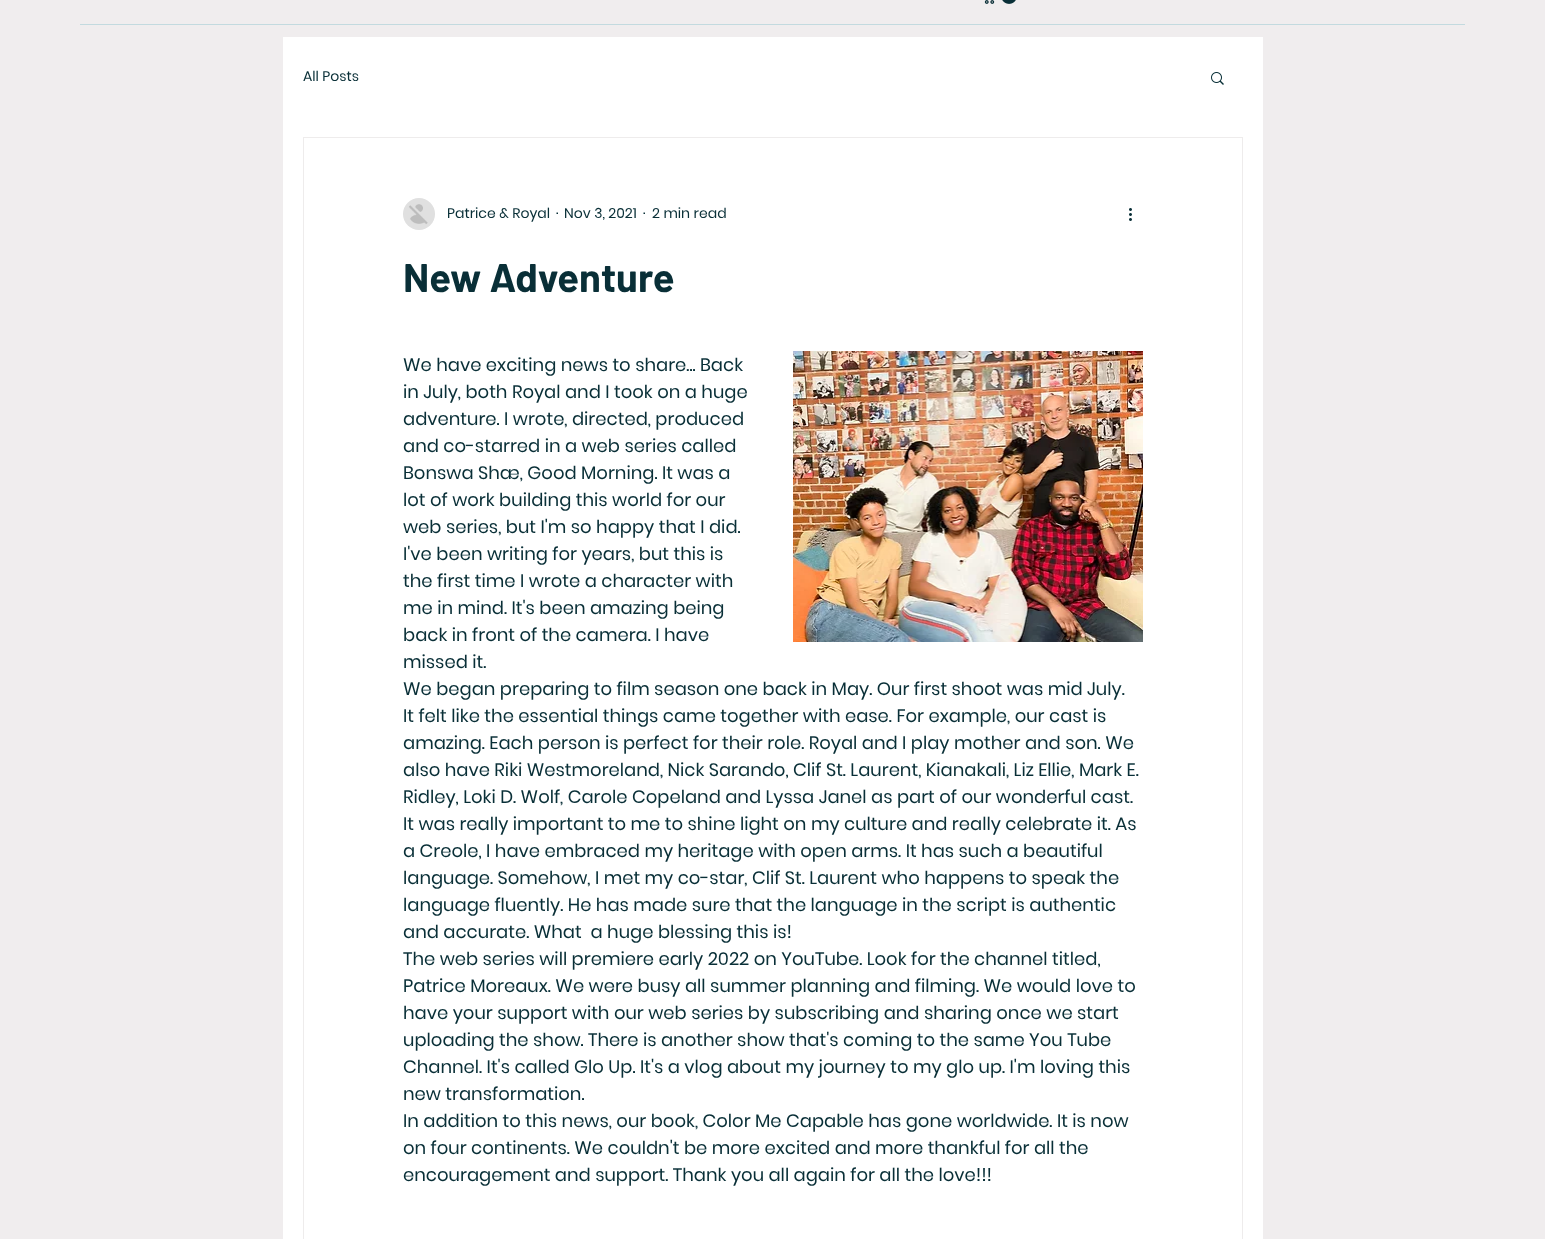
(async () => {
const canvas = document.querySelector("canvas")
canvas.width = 1545
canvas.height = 1239
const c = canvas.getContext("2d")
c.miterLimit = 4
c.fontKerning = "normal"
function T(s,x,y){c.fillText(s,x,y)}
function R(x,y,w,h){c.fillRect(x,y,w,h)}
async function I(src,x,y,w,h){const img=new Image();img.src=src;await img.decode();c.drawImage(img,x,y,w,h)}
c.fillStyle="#f0edee"
R(0,0,1545,1239)
await I("1.png",984,0,32,4)
c.fillStyle="#c3dadf"
R(80,24,1385,1)
c.fillStyle="#fff"
R(283,37,980,1202)
c.font="14px Poppins"
c.fillStyle="#092f37"
T("All Posts",303,81)
await I("2.png",1211,72,13,13)
c.strokeStyle="#eeecec"
c.strokeRect(303.5,137.5,939,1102)
await I("3.png",403,198,32,32)
T("Patrice & Royal",447,218)
T("·",556,218)
T("Nov 3, 2021",564,218)
T("·",643,218)
T("2 min read",652,218)
await I("4.png",1129,208,3,13)
c.font="bold 40px Barlow"
T("New Adventure",403,292)
c.font="18px Poppins"
T("We have exciting news to share... Back",403,371)
T("in July, both Royal and I took on a huge",403,398)
T("adventure. I wrote, directed, produced",403,425)
T("and co-starred in a web series called",403,452)
T("Bonswa Shæ, Good Morning. It was a",403,479)
T("lot of work building this world for our",403,506)
T("web series, but I'm so happy that I did.",403,533)
T("I've been writing for years, but this is",403,560)
T("the first time I wrote a character with",403,587)
T("me in mind. It's been amazing being",403,614)
T("back in front of the camera. I have",403,641)
T("missed it.",403,668)
await I("5.png",793,351,350,291)
T("We began preparing to film season one back in May. Our first shoot was mid July.",403,695)
T("It felt like the essential things came together with ease. For example, our cast is",403,722)
T("amazing. Each person is perfect for their role. Royal and I play mother and son. We",403,749)
T("also have Riki Westmoreland, Nick Sarando, Clif St. Laurent, Kianakali, Liz Ellie, Mark E.",403,776)
T("Ridley, Loki D. Wolf, Carole Copeland and Lyssa Janel as part of our wonderful cast.",403,803)
T("It was really important to me to shine light on my culture and really celebrate it. As",403,830)
T("a Creole, I have embraced my heritage with open arms. It has such a beautiful",403,857)
T("language. Somehow, I met my co-star, Clif St. Laurent who happens to speak the",403,884)
T("language fluently. He has made sure that the language in the script is authentic",403,911)
T("and accurate. What  a huge blessing this is!",403,938)
T("The web series will premiere early 2022 on YouTube. Look for the channel titled,",403,965)
T("Patrice Moreaux. We were busy all summer planning and filming. We would love to",403,992)
T("have your support with our web series by subscribing and sharing once we start",403,1019)
T("uploading the show. There is another show that's coming to the same You Tube",403,1046)
T("Channel. It's called Glo Up. It's a vlog about my journey to my glo up. I'm loving this",403,1073)
T("new transformation.",403,1100)
T("In addition to this news, our book, Color Me Capable has gone worldwide. It is now",403,1127)
T("on four continents. We couldn't be more excited and more thankful for all the",403,1154)
T("encouragement and support. Thank you all again for all the love!!!",403,1181)
})()
